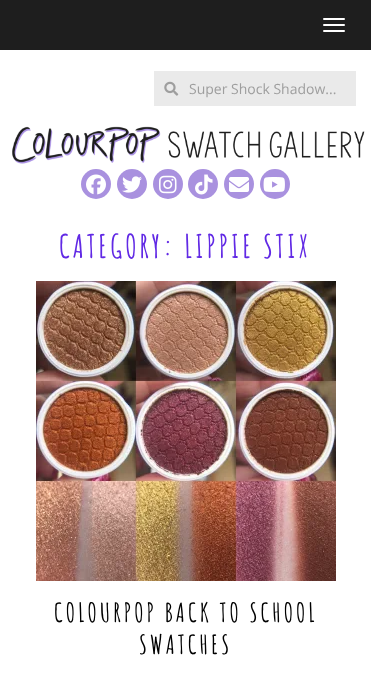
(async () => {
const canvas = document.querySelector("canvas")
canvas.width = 371
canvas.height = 690
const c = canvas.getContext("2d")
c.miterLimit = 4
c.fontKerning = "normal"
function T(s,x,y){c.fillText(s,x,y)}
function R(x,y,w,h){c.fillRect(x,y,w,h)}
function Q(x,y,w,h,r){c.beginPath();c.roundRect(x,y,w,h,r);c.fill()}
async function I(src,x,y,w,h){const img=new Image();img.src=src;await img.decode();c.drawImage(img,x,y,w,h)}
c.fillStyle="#fff"
R(0,0,371,690)
c.fillStyle="#1e1e1e"
R(0,0,371,50)
c.fillStyle="#fff"
Q(323,18,22,2,1)
Q(323,24,22,2,1)
Q(323,30,22,2,1)
c.fillStyle="#eaeaea"
R(154,71,202,35)
await I("1.png",164,81,15,15)
c.font="14px Open Sans"
c.fillStyle="#9e9e9e"
T("Super Shock Shadow...",189,94)
await I("2.png",12,126,353,38)
c.fillStyle="#a991df"
c.beginPath()
c.arc(96,184,15,0,7)
c.fill()
await I("3.png",86,174,20,21)
c.beginPath()
c.arc(132,184,15,0,7)
c.fill()
await I("4.png",122,176,20,17)
c.beginPath()
c.arc(168,184,15,0,7)
c.fill()
await I("5.png",159,175,18,19)
c.beginPath()
c.arc(203,184,15,0,7)
c.fill()
await I("6.png",195,174,18,21)
c.beginPath()
c.arc(239,184,15,0,7)
c.fill()
await I("7.png",229,177,20,15)
c.beginPath()
c.arc(275,184,15,0,7)
c.fill()
await I("8.png",263,177,22,15)
c.letterSpacing="3px"
c.font="bold 32px Amatic SC"
c.fillStyle="#6129e5"
T("CATEGORY: LIPPIE STIX",59,258)
await I("9.png",36,281,300,300)
c.font="bold 26px Amatic SC"
c.fillStyle="#000"
T("COLOURPOP BACK TO SCHOOL",54,622)
T("SWATCHES",139,654)
})()
